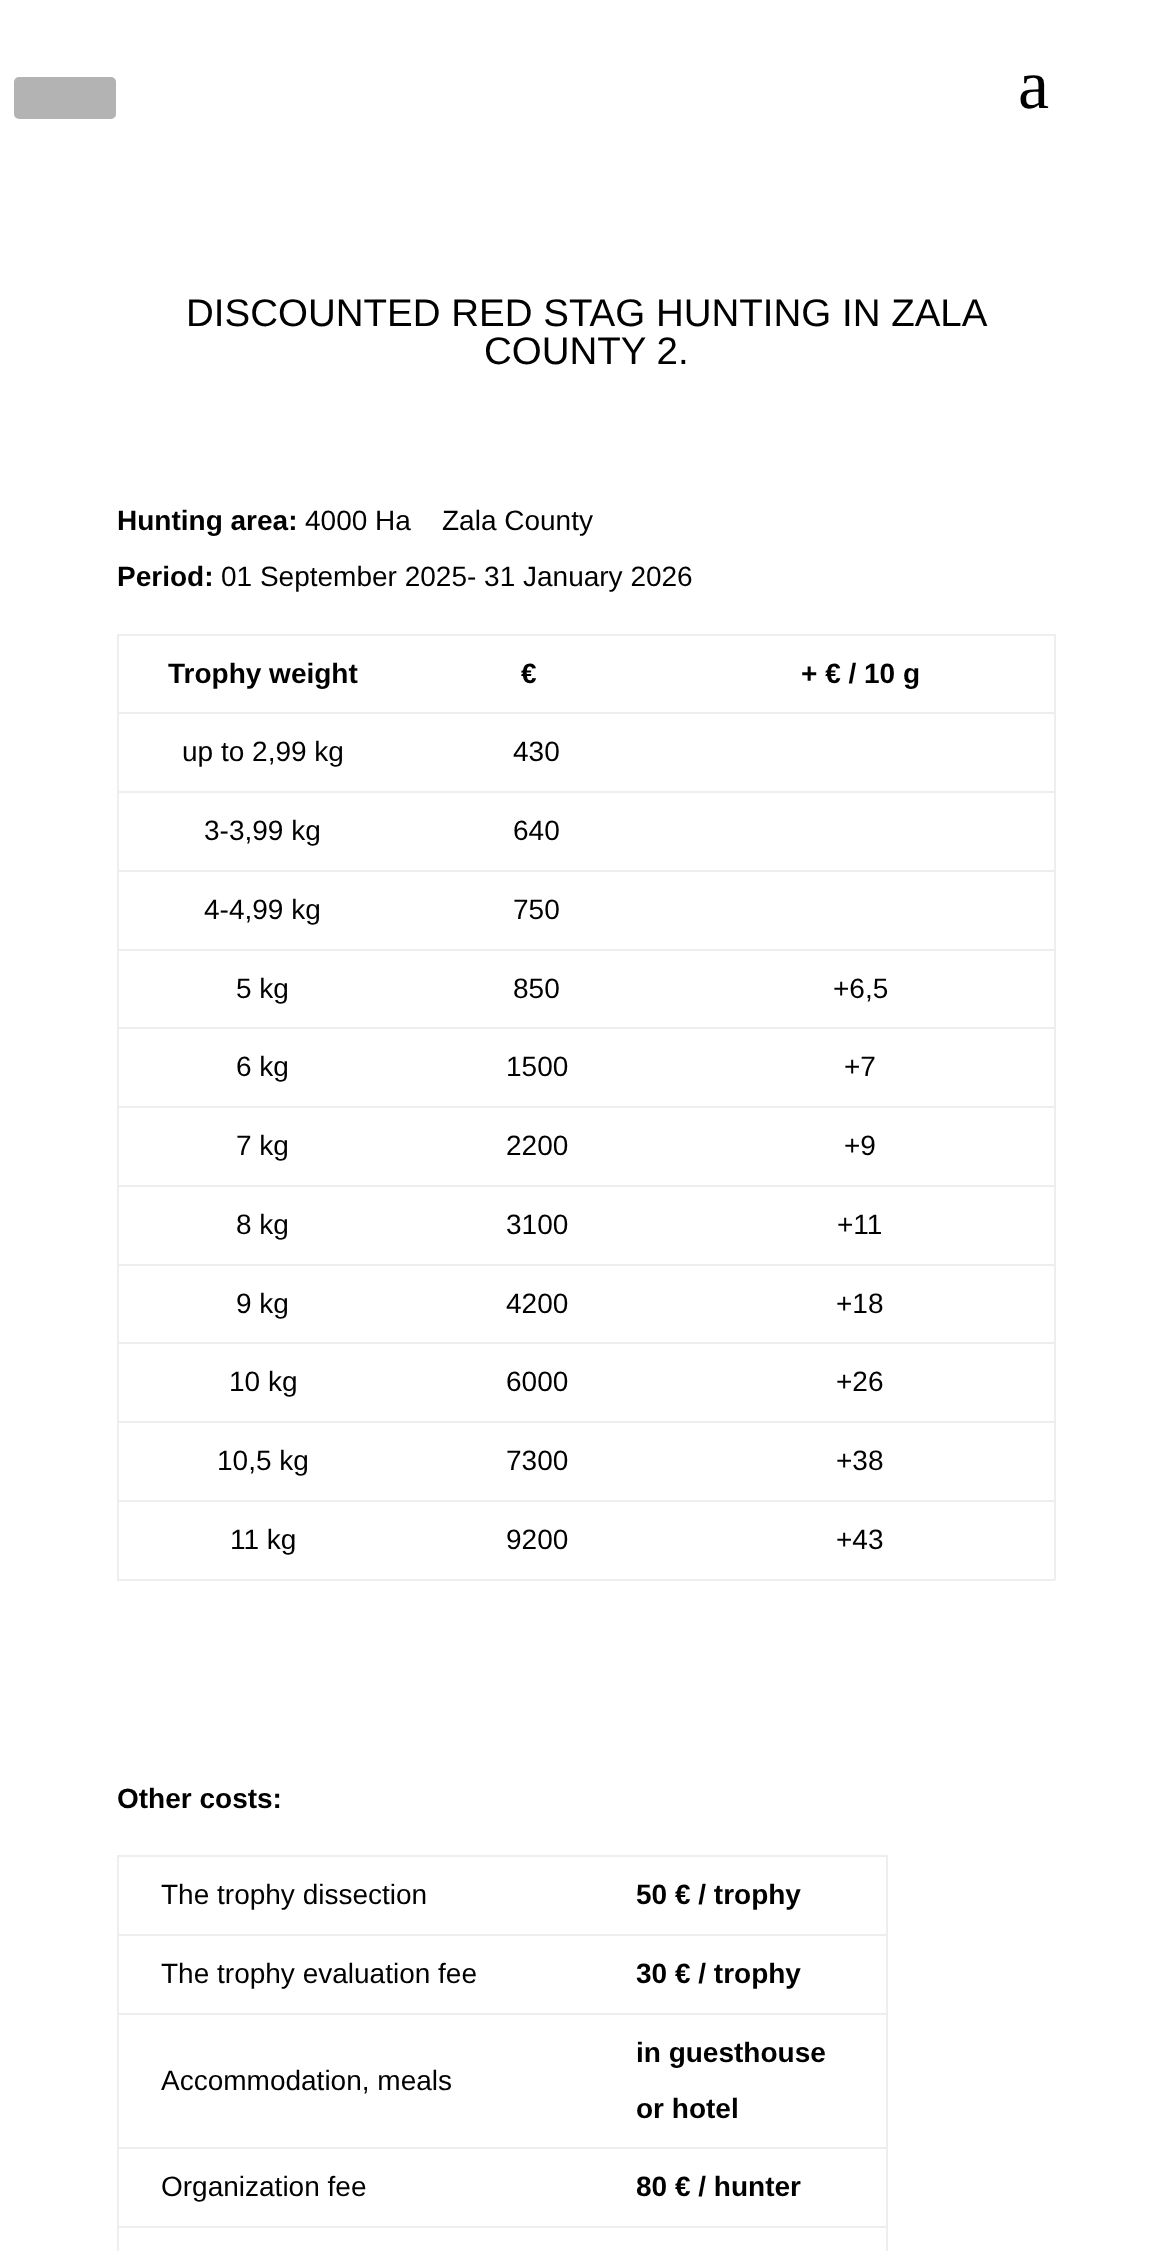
(async () => {
const canvas = document.querySelector("canvas")
canvas.width = 1172
canvas.height = 2251
const c = canvas.getContext("2d")
c.miterLimit = 4
c.fontKerning = "normal"
function T(s,x,y){c.fillText(s,x,y)}
function R(x,y,w,h){c.fillRect(x,y,w,h)}
function Q(x,y,w,h,r){c.beginPath();c.roundRect(x,y,w,h,r);c.fill()}
c.fillStyle="#fff"
R(0,0,1172,2251)
c.fillStyle="#b3b3b3"
Q(14,77,102,42,5)
c.font="70px Liberation Serif"
c.fillStyle="#000"
T("a",1018,108)
c.font="38.5px Liberation Sans"
T("DISCOUNTED RED STAG HUNTING IN ZALA",186,326)
T("COUNTY 2.",484,364)
c.font="bold 28px Liberation Sans"
T("Hunting area:",117,530)
c.font="28px Liberation Sans"
T("4000 Ha    Zala County",305,530)
c.font="bold 28px Liberation Sans"
T("Period:",117,586)
c.font="28px Liberation Sans"
T("01 September 2025- 31 January 2026",221,586)
c.fillStyle="#eee"
R(117,634,938,2)
R(1054,634,2,946)
R(117,1579,938,2)
R(117,634,2,946)
c.font="bold 28px Liberation Sans"
c.fillStyle="#000"
T("Trophy weight",168,683)
T("€",521,683)
T("+ € / 10 g",801,683)
c.fillStyle="#eee"
R(117,712,938,2)
c.font="28px Liberation Sans"
c.fillStyle="#000"
T("up to 2,99 kg",182,761)
T("430",513,761)
c.fillStyle="#eee"
R(117,791,938,2)
c.fillStyle="#000"
T("3-3,99 kg",204,840)
T("640",513,840)
c.fillStyle="#eee"
R(117,870,938,2)
c.fillStyle="#000"
T("4-4,99 kg",204,919)
T("750",513,919)
T("5 kg",236,998)
T("850",513,998)
c.fillStyle="#eee"
R(117,949,938,2)
c.fillStyle="#000"
T("+6,5",833,998)
T("6 kg",236,1076)
T("1500",506,1076)
c.fillStyle="#eee"
R(117,1027,938,2)
c.fillStyle="#000"
T("+7",844,1076)
T("7 kg",236,1155)
T("2200",506,1155)
c.fillStyle="#eee"
R(117,1106,938,2)
c.fillStyle="#000"
T("+9",844,1155)
T("8 kg",236,1234)
T("3100",506,1234)
c.fillStyle="#eee"
R(117,1185,938,2)
c.fillStyle="#000"
T("+11",837,1234)
T("9 kg",236,1313)
T("4200",506,1313)
c.fillStyle="#eee"
R(117,1264,938,2)
c.fillStyle="#000"
T("+18",836,1313)
T("10 kg",229,1391)
T("6000",506,1391)
c.fillStyle="#eee"
R(117,1342,938,2)
c.fillStyle="#000"
T("+26",836,1391)
T("10,5 kg",217,1470)
T("7300",506,1470)
c.fillStyle="#eee"
R(117,1421,938,2)
c.fillStyle="#000"
T("+38",836,1470)
T("11 kg",230,1549)
T("9200",506,1549)
c.fillStyle="#eee"
R(117,1500,938,2)
c.fillStyle="#000"
T("+43",836,1549)
c.font="bold 28px Liberation Sans"
T("Other costs:",117,1808)
c.fillStyle="#eee"
R(117,1855,770,2)
R(886,1855,2,396)
R(117,1855,2,396)
c.font="28px Liberation Sans"
c.fillStyle="#000"
T("The trophy dissection",161,1904)
c.font="bold 28px Liberation Sans"
T("50 € / trophy",636,1904)
c.font="28px Liberation Sans"
T("The trophy evaluation fee",161,1983)
c.fillStyle="#eee"
R(117,1934,770,2)
c.font="bold 28px Liberation Sans"
c.fillStyle="#000"
T("30 € / trophy",636,1983)
c.font="28px Liberation Sans"
T("Accommodation, meals",161,2090)
c.fillStyle="#eee"
R(117,2013,770,2)
c.font="bold 28px Liberation Sans"
c.fillStyle="#000"
T("in guesthouse",636,2062)
T("or hotel",636,2118)
c.font="28px Liberation Sans"
T("Organization fee",161,2196)
c.fillStyle="#eee"
R(117,2147,770,2)
c.font="bold 28px Liberation Sans"
c.fillStyle="#000"
T("80 € / hunter",636,2196)
c.fillStyle="#eee"
R(117,2226,770,2)
})()
